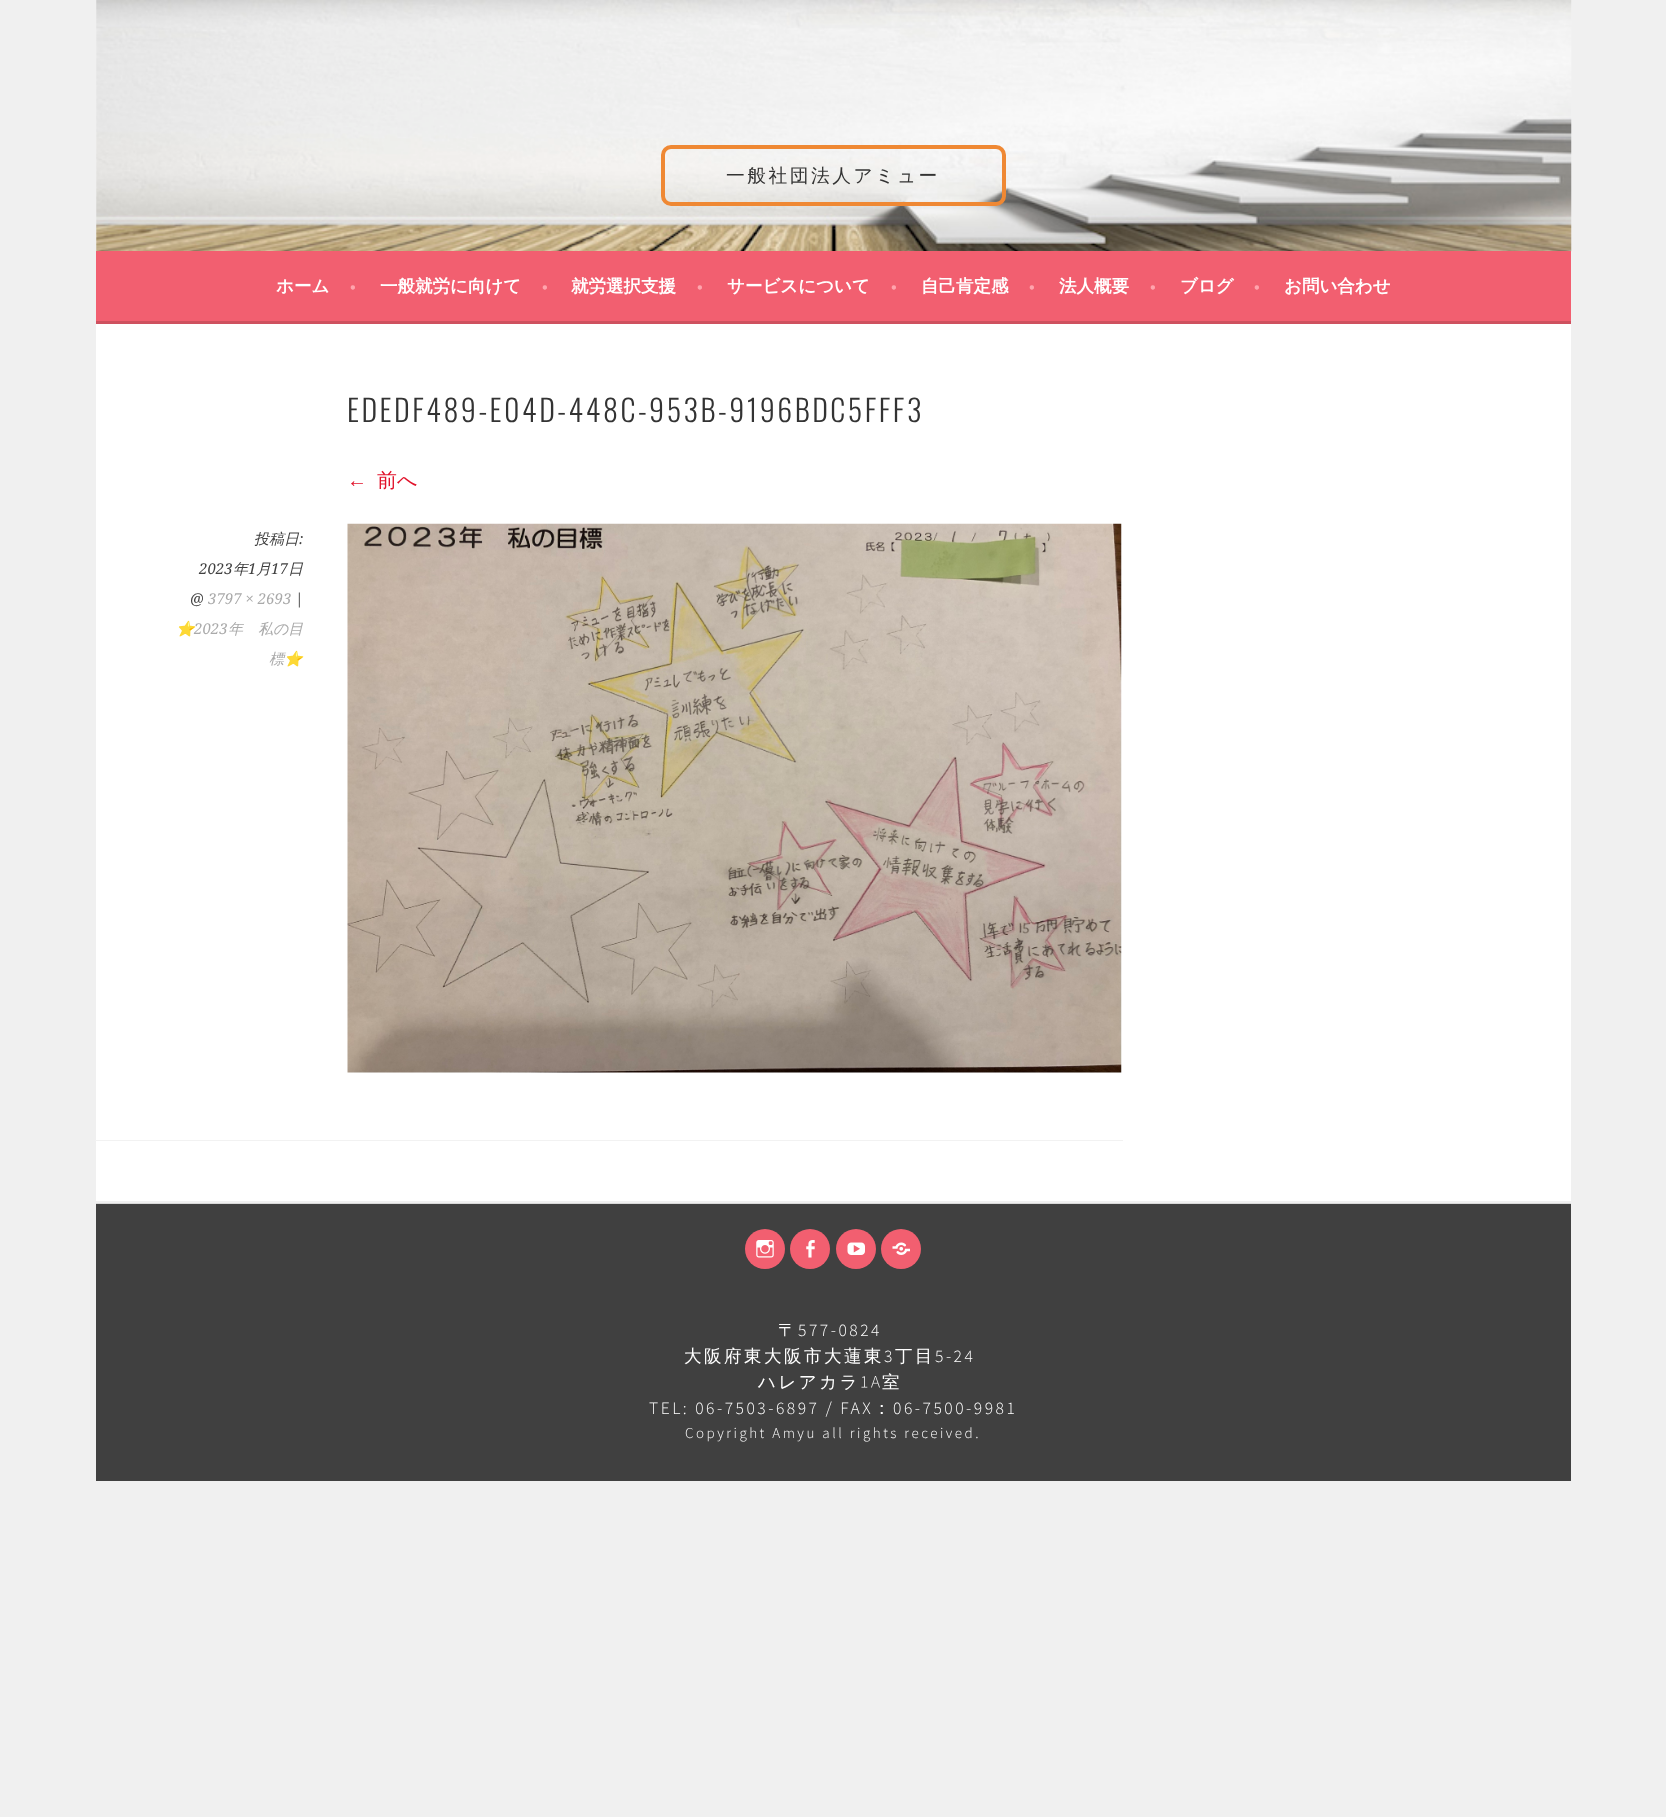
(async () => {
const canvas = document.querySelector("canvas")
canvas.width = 1666
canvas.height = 1817
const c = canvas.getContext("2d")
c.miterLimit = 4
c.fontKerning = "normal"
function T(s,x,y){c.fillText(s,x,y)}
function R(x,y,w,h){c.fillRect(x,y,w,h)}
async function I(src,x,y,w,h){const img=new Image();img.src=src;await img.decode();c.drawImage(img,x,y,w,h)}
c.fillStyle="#f0f0f0"
R(0,0,1666,1817)
await I("1.png",96,0,1476,252)
c.beginPath()
c.roundRect(663,147,341,57,8)
c.strokeStyle="#ef8833"
c.lineWidth=4
c.stroke()
c.letterSpacing="2.5px"
c.font="500 18.75px WenQuanYi Zen Hei"
c.fillStyle="#333"
T("一般社団法人アミュー",726,182)
c.fillStyle="#f25f70"
R(96,251,1475,70)
c.fillStyle="#ce515f"
R(96,321,1475,3)
c.letterSpacing="0px"
c.font="bold 17.5px WenQuanYi Zen Hei"
c.fillStyle="#fff"
T("ホーム",276,292)
c.font="600 17.5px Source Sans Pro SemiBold"
c.fillStyle="#ffa4ad"
T("•",350,292)
c.font="bold 17.5px WenQuanYi Zen Hei"
c.fillStyle="#fff"
T("一般就労に向けて",380,292)
c.font="600 17.5px Source Sans Pro SemiBold"
c.fillStyle="#ffa4ad"
T("•",542,292)
c.font="bold 17.5px WenQuanYi Zen Hei"
c.fillStyle="#fff"
T("就労選択支援",571,292)
c.font="600 17.5px Source Sans Pro SemiBold"
c.fillStyle="#ffa4ad"
T("•",697,292)
c.font="bold 17.5px WenQuanYi Zen Hei"
c.fillStyle="#fff"
T("サービスについて",727,292)
c.font="600 17.5px Source Sans Pro SemiBold"
c.fillStyle="#ffa4ad"
T("•",891,292)
c.font="bold 17.5px WenQuanYi Zen Hei"
c.fillStyle="#fff"
T("自己肯定感",921,292)
c.font="600 17.5px Source Sans Pro SemiBold"
c.fillStyle="#ffa4ad"
T("•",1029,292)
c.font="bold 17.5px WenQuanYi Zen Hei"
c.fillStyle="#fff"
T("法人概要",1059,292)
c.font="600 17.5px Source Sans Pro SemiBold"
c.fillStyle="#ffa4ad"
T("•",1150,292)
c.font="bold 17.5px WenQuanYi Zen Hei"
c.fillStyle="#fff"
T("ブログ",1180,292)
c.font="600 17.5px Source Sans Pro SemiBold"
c.fillStyle="#ffa4ad"
T("•",1254,292)
c.font="bold 17.5px WenQuanYi Zen Hei"
c.fillStyle="#fff"
T("お問い合わせ",1284,292)
R(96,324,1475,877)
c.letterSpacing="2.5px"
c.font="300 30px Oswald"
c.fillStyle="#333"
T("EDEDF489-E04D-448C-953B-9196BDC5FFF3",347,422)
c.letterSpacing="0px"
c.font="20px Liberation Sans"
c.fillStyle="#e1122a"
T("←",347,487)
c.font="500 20px WenQuanYi Zen Hei"
T("前へ",377,487)
c.font="italic 500 15px WenQuanYi Zen Hei"
c.fillStyle="#404040"
T("投稿日",254,544)
c.font="italic 15px Droid Serif"
T(":",299,544)
T("2023",199,574)
c.font="italic 500 15px WenQuanYi Zen Hei"
T("年",233,574)
c.font="italic 15px Droid Serif"
T("1",248,574)
c.font="italic 500 15px WenQuanYi Zen Hei"
T("月",256,574)
c.font="italic 15px Droid Serif"
T("17",271,574)
c.font="italic 500 15px WenQuanYi Zen Hei"
T("日",288,574)
c.font="italic 15px Droid Serif"
T("@",190,604)
c.fillStyle="#aaa"
T("3797 × 2693",208,604)
c.fillStyle="#404040"
T("|",295,604)
c.font="italic 15px Noto Color Emoji"
c.fillStyle="#aaa"
T("⭐️",176,634)
c.font="italic 15px Droid Serif"
T("2023",194,634)
c.font="italic 500 15px WenQuanYi Zen Hei"
T("年　私の目",228,634)
T("標",269,664)
c.font="italic 15px Noto Color Emoji"
T("⭐️",284,664)
await I("2.png",347,523,775,550)
c.fillStyle="#f2f2f2"
R(95,1140,1028,1)
c.fillStyle="#404040"
R(96,1204,1475,277)
c.fillStyle="#d9d9d9"
R(96,1203,1475,1)
c.fillStyle="#f25f70"
c.beginPath()
c.arc(765,1249,20,0,7)
c.fill()
await I("3.png",756,1240,18,18)
c.beginPath()
c.arc(810,1249,20,0,7)
c.fill()
await I("4.png",806,1240,9,18)
c.beginPath()
c.arc(856,1249,20,0,7)
c.fill()
await I("5.png",847,1242,18,13)
c.beginPath()
c.arc(901,1249,20,0,7)
c.fill()
await I("6.png",892,1242,18,13)
await I("7.png",861,1376,19,12)
c.letterSpacing="2.5px"
c.font="500 17.5px WenQuanYi Zen Hei"
c.fillStyle="#fff"
T("〒",778,1336)
c.font="300 17.5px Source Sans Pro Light"
T("577-0824",798,1336)
c.font="500 17.5px WenQuanYi Zen Hei"
T("大阪府東大阪市大蓮東",684,1362)
c.font="300 17.5px Source Sans Pro Light"
T("3",884,1362)
c.font="500 17.5px WenQuanYi Zen Hei"
T("丁目",895,1362)
c.font="300 17.5px Source Sans Pro Light"
T("5-24",935,1362)
c.font="500 17.5px WenQuanYi Zen Hei"
T("ハレアカラ",758,1388)
T("室",882,1388)
c.font="300 17.5px Source Sans Pro Light"
T("TEL: 06-7503-6897 / FAX",649,1414)
c.font="500 17.5px WenQuanYi Zen Hei"
T("：",873,1414)
c.font="300 17.5px Source Sans Pro Light"
T("06-7500-9981",893,1414)
c.font="300 15px Source Sans Pro Light"
T("Copyright Amyu all rights received.",685,1438)
})()
